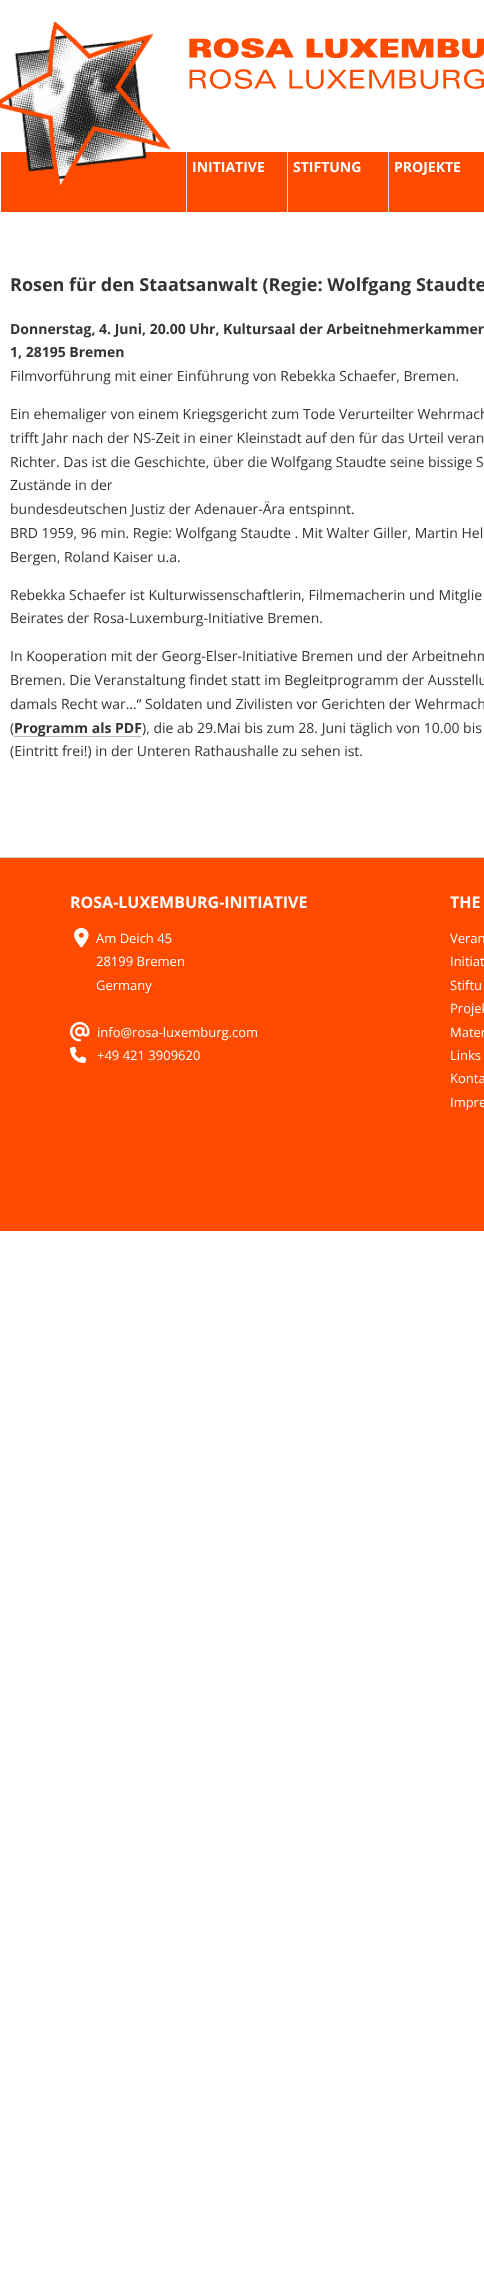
(async () => {
const canvas = document.querySelector("canvas")
canvas.width = 484
canvas.height = 2273
const c = canvas.getContext("2d")
c.miterLimit = 4
c.fontKerning = "normal"
function T(s,x,y){c.fillText(s,x,y)}
function R(x,y,w,h){c.fillRect(x,y,w,h)}
async function I(src,x,y,w,h){const img=new Image();img.src=src;await img.decode();c.drawImage(img,x,y,w,h)}
c.fillStyle="#fff"
R(0,0,484,2273)
c.fillStyle="#ff4b00"
R(1,152,483,60)
await I("1.png",0,21,171,177)
await I("2.png",189,38,295,51)
c.fillStyle="#ddd"
R(287,152,1,60)
R(186,152,1,60)
c.font="bold 14px Open Sans"
c.fillStyle="#fff"
T("INITIATIVE",192,172)
c.fillStyle="#ddd"
R(388,152,1,60)
c.fillStyle="#fff"
T("STIFTUNG",293,172)
T("PROJEKTE",394,172)
c.font="bold 18px Open Sans"
c.fillStyle="#333"
T("Rosen für den Staatsanwalt (Regie: Wolfgang Staudte",10,291)
c.font="bold 14px Open Sans"
T("Donnerstag, 4. Juni, 20.00 Uhr, Kultursaal der Arbeitnehmerkammer",10,334)
T("1, 28195 Bremen",10,357)
c.font="14px Open Sans"
T("Filmvorführung mit einer Einführung von Rebekka Schaefer, Bremen.",10,381)
T("Ein ehemaliger von einem Kriegsgericht zum Tode Verurteilter Wehrmach",10,419)
T("trifft Jahr nach der NS-Zeit in einer Kleinstadt auf den für das Urteil veran",10,443)
T("Richter. Das ist die Geschichte, über die Wolfgang Staudte seine bissige S",10,467)
T("Zustände in der",10,490)
T("bundesdeutschen Justiz der Adenauer-Ära entspinnt.",10,514)
T("BRD 1959, 96 min. Regie: Wolfgang Staudte . Mit Walter Giller, Martin Hel",10,538)
T("Bergen, Roland Kaiser u.a.",10,562)
T("Rebekka Schaefer ist Kulturwissenschaftlerin, Filmemacherin und Mitglie",10,600)
T("Beirates der Rosa-Luxemburg-Initiative Bremen.",10,623)
T("In Kooperation mit der Georg-Elser-Initiative Bremen und der Arbeitnehm",10,661)
T("Bremen. Die Veranstaltung findet statt im Begleitprogramm der Ausstellu",10,685)
T("damals Recht war…“ Soldaten und Zivilisten vor Gerichten der Wehrmach",10,709)
T("(",10,733)
c.fillStyle="#b8b8b8"
R(14,736,128,1)
c.font="bold 14px Open Sans"
c.fillStyle="#333"
T("Programm als PDF",14,733)
c.font="14px Open Sans"
T("), die ab 29.Mai bis zum 28. Juni täglich von 10.00 bis",142,733)
T("(Eintritt frei!) in der Unteren Rathaushalle zu sehen ist.",10,756)
c.fillStyle="#ff4b00"
R(0,858,484,373)
c.fillStyle="#ccc"
R(0,857,484,1)
c.font="bold 16px Open Sans"
c.fillStyle="#fff"
T("ROSA-LUXEMBURG-INITIATIVE",70,908)
await I("3.png",74,927,15,21)
c.font="13px Open Sans"
T("Am Deich 45",96,943)
T("28199 Bremen",96,966)
T("Germany",96,990)
await I("4.png",70,1021,20,21)
T("info@rosa-luxemburg.com",97,1037)
await I("5.png",70,1046,17,17)
T("+49 421 3909620",97,1060)
c.font="bold 16px Open Sans"
T("THE",450,908)
c.font="13px Open Sans"
T("Veran",450,943)
T("Initiat",450,966)
T("Stiftu",450,990)
T("Projek",450,1013)
T("Mater",450,1037)
T("Links",450,1060)
T("Konta",450,1083)
T("Impre",450,1107)
})()
